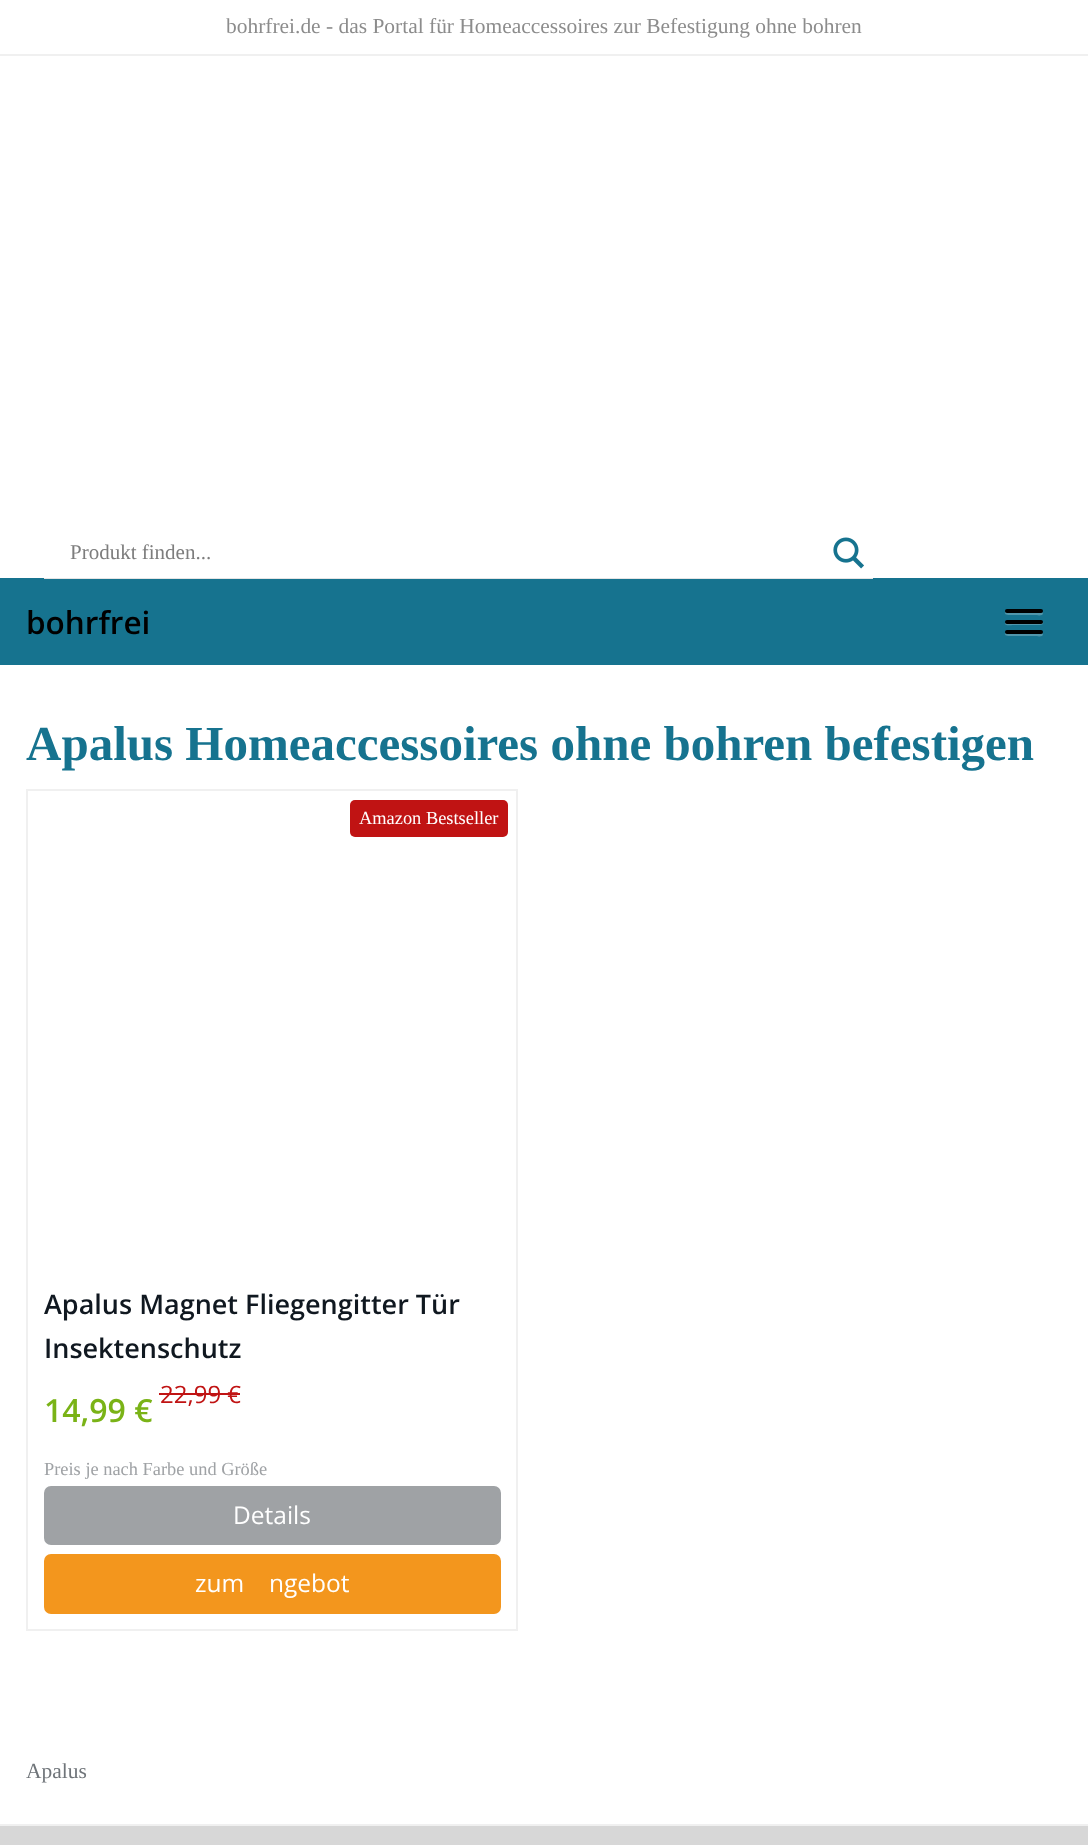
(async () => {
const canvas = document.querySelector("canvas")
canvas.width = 1088
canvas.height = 1845
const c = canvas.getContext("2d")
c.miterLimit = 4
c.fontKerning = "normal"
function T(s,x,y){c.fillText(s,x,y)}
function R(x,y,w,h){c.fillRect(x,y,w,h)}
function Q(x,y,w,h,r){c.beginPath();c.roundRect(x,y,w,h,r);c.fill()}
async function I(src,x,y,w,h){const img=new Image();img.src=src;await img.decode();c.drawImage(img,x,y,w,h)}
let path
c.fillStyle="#fff"
R(0,0,1088,1845)
c.fillStyle="#f0f0f0"
R(0,54,1088,2)
c.font="21.45px Liberation Serif"
c.fillStyle="#8c8c8c"
T("bohrfrei.de - das Portal für Homeaccessoires zur Befestigung ohne bohren",226,33)
c.fillStyle="#16738f"
R(0,578,1088,87)
c.fillStyle="#e4e4e4"
R(44,578,829,1)
c.font="21px Liberation Serif"
c.fillStyle="#7d7d7d"
T("Produkt finden...",70,559)
await I("1.png",833,537,31,32)
c.font="600 31.5px Open Sans"
c.fillStyle="#000"
T("bohrfrei",26,634)
c.fillStyle="#5096ab"
path = new Path2D("M1005 612c-1.5 4 7.5 3 7.5 3h23c.5 0 7 1.5 7.5-1.5l-.5-1.5c-1 1.5-6.5 .5-7 .5c-3.5 0-29 .5-30.5-.5z")
c.fill(path)
c.fillStyle="#000"
Q(1005,609,38,4,2)
c.fillStyle="#5096ab"
path = new Path2D("M1005 622.5c-1 4 7 2.5 7.5 2.5h23c0 0 9.5 1 7.5-3l-1 1h-36z")
c.fill(path)
c.fillStyle="#000"
Q(1005,620,38,4,2)
c.fillStyle="#5096ab"
path = new Path2D("M1005 633c-1.5 4 7.5 3 7.5 3h23c.5 0 7 1.5 7.5-1.5l-.5-1.5c-1 1.5-6.5 .5-7 .5c-3.5 0-29 .5-30.5-.5z")
c.fill(path)
c.fillStyle="#000"
Q(1005,630,38,4,2)
c.font="bold 49px Liberation Serif"
c.fillStyle="#16738f"
T("Apalus Homeaccessoires ohne bohren befestigen",26,760)
c.strokeStyle="#f0f0f0"
c.lineWidth=2
c.strokeRect(27,790,490,840)
c.fillStyle="#c01313"
Q(350,800,158,37,5)
c.font="18.4px Liberation Serif"
c.fillStyle="#fff"
T("Amazon Bestseller",359,824)
c.font="600 27px Open Sans"
c.fillStyle="#101820"
T("Apalus Magnet Fliegengitter Tür",44,1314)
T("Insektenschutz",44,1358)
c.font="24px Open Sans"
c.fillStyle="#c01313"
T("22,99 €",160,1403)
R(159,1393,81,2)
c.font="600 32px Open Sans"
c.fillStyle="#7ab317"
T("14,99 €",44,1422)
c.font="18.4px Liberation Serif"
c.fillStyle="#9fa2a5"
T("Preis je nach Farbe und Größe",44,1475)
c.beginPath()
c.roundRect(45,1487,455,57,6)
c.fill()
c.strokeStyle="#9fa2a5"
c.stroke()
c.font="24.5px Open Sans"
c.fillStyle="#fff"
T("Details",233,1524)
c.fillStyle="#f3961d"
c.beginPath()
c.roundRect(45,1555,455,58,6)
c.fill()
c.strokeStyle="#f3961d"
c.stroke()
c.fillStyle="#fff"
T("zum",195,1592)
T("ngebot",269,1592)
c.font="21.45px Liberation Serif"
c.fillStyle="#6f7479"
T("Apalus",26,1778)
c.fillStyle="#d7d7d7"
R(0,1826,1088,19)
c.fillStyle="#f0f0f0"
R(0,1824,1088,2)
})()
